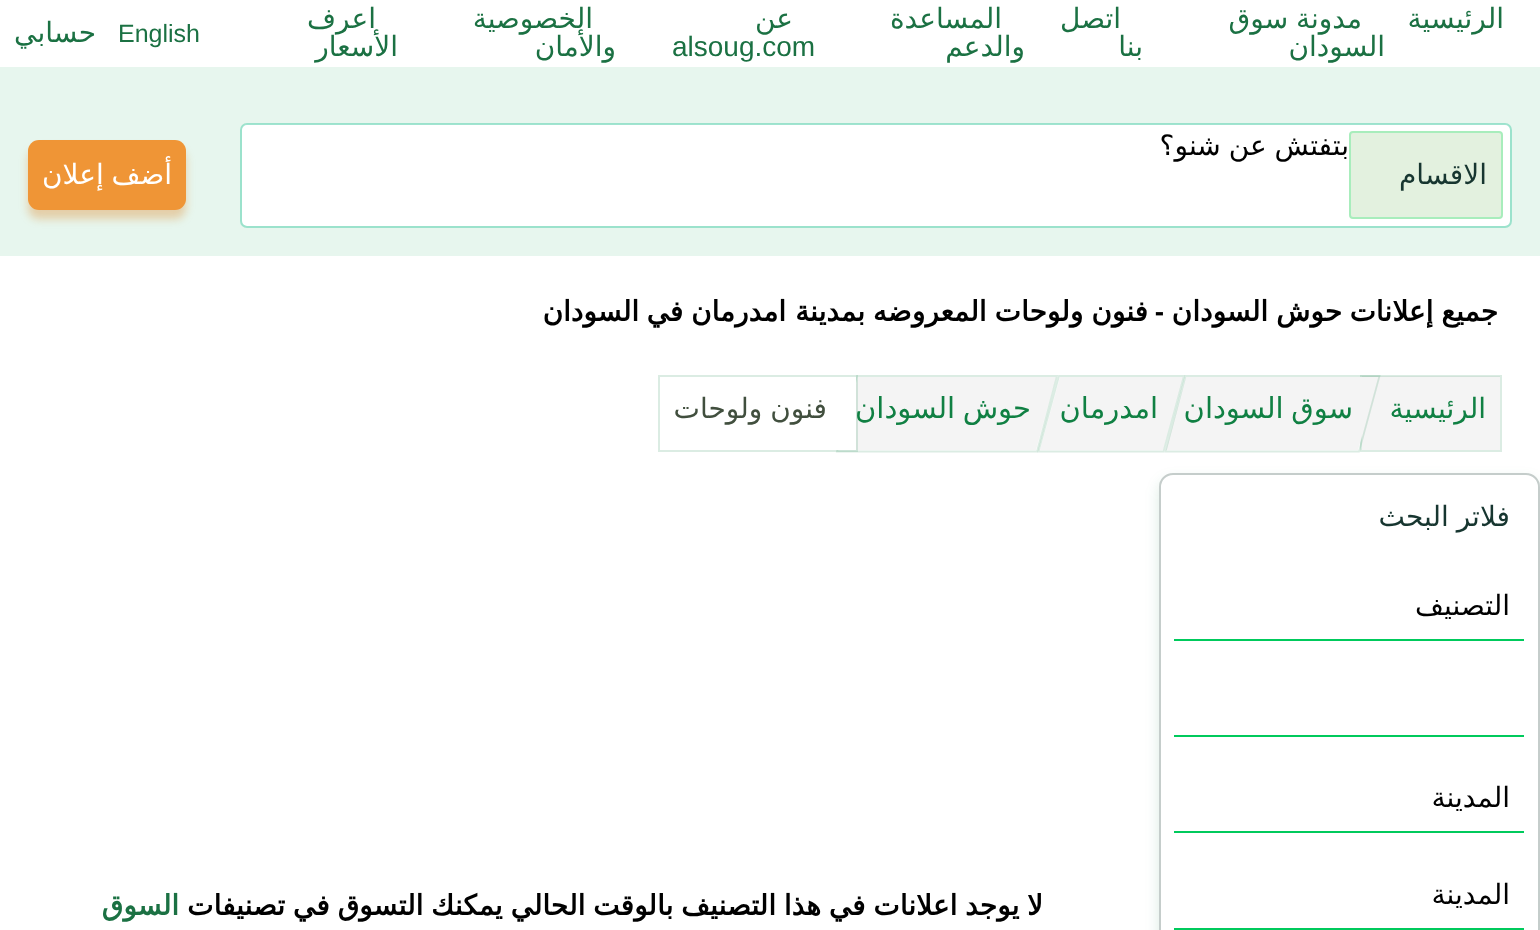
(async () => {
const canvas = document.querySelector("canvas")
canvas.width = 1540
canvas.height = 930
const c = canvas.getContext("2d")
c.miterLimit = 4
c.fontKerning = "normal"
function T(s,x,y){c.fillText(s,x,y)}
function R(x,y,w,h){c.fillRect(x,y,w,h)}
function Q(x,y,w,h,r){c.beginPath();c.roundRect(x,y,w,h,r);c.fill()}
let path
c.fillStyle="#fff"
R(0,0,1540,930)
c.save()
path = new Path2D("M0 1h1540v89h-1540zm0-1h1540v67h-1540z")
c.clip(path,"evenodd")
c.fillStyle="#00000054"
c.filter="blur(8px)"
c.beginPath()
c.rect(14,26,1512,39)
c.fill()
c.filter="none"
c.restore()
c.direction="rtl"
c.font="28px DejaVu Sans"
c.fillStyle="#1b7143"
T("الرئيسية",1504,28)
c.wordSpacing="-1.1px"
T("مدونة سوق",1362,28)
c.wordSpacing="0px"
T("السودان",1385,56)
T("اتصل",1121,28)
T("بنا",1143,56)
T("المساعدة",1002,28)
T("والدعم",1025,56)
T("عن",793,28)
c.direction="ltr"
c.font="28px Liberation Sans"
T("alsoug.com",672,56)
c.direction="rtl"
c.font="28px DejaVu Sans"
T("الخصوصية",593,28)
T("والأمان",616,56)
T("اعرف",376,28)
T("الأسعار",398,56)
c.direction="ltr"
c.font="25px Liberation Sans"
T("English",118,42)
c.direction="rtl"
c.font="28px DejaVu Sans"
T("حسابي",96,42)
c.fillStyle="#e7f6ee"
R(0,67,1540,189)
c.fillStyle="#fff"
Q(242,124,1268,102,5)
c.beginPath()
c.roundRect(241,124,1270,103,6)
c.strokeStyle="#84dbc1c2"
c.lineWidth=2
c.stroke()
c.wordSpacing="-1.1px"
c.fillStyle="#000"
T("بتفتش عن شنو؟",1349,155)
c.fillStyle="#e3f1df"
c.beginPath()
c.roundRect(1350,132,152,86,3)
c.fill()
c.strokeStyle="#a8edbc"
c.stroke()
c.wordSpacing="0px"
c.fillStyle="#173630"
T("الاقسام",1487,184)
c.fillStyle="#de75064d"
c.filter="blur(4.5px)"
c.beginPath()
c.roundRect(28,149,158,70,11)
c.fill()
c.filter="none"
c.fillStyle="#ef9536"
Q(28,140,158,70,11)
c.wordSpacing="-1.1px"
c.fillStyle="#fff"
T("أضف إعلان",172,184)
c.font="bold 28px DejaVu Sans"
c.fillStyle="#000"
T("جميع إعلانات",1498,321)
c.wordSpacing="-1px"
T("حوش السودان",1342,321)
c.wordSpacing="0px"
c.font="bold 28px Liberation Sans"
T("-",1164,321)
c.wordSpacing="-1px"
c.font="bold 28px DejaVu Sans"
T("فنون ولوحات المعروضه بمدينة",1148,321)
c.wordSpacing="-1.1px"
T("امدرمان في",786,321)
c.wordSpacing="0px"
T("السودان",639,321)
c.fillStyle="#f4f4f4"
R(1362,376,138,74)
c.strokeStyle="#10804326"
c.strokeRect(1361,376,140,75)
c.font="28px DejaVu Sans"
c.fillStyle="#108043"
T("الرئيسية",1486,418)
c.fillStyle="#f4f4f4"
path = new Path2D("M1186 377h192l-20 73h-192z")
c.fill(path)
path = new Path2D("M1185.5 376h194l-20.5 75.5h-193.5z")
c.lineWidth=1.8
c.stroke(path)
c.letterSpacing="-0.5px"
c.wordSpacing="-1.1px"
c.font="29px DejaVu Sans"
c.fillStyle="#108043"
T("سوق السودان",1353,418)
c.fillStyle="#f4f4f4"
path = new Path2D("M1060 377h123l-20 73h-123z")
c.fill(path)
path = new Path2D("M1059 376h125l-20.5 75.5h-125z")
c.stroke(path)
c.wordSpacing="0px"
c.fillStyle="#108043"
T("امدرمان",1158,418)
c.fillStyle="#f4f4f4"
path = new Path2D("M858 377h198l-20 73h-198z")
c.fill(path)
path = new Path2D("M857 376h200l-20 75.5h-200z")
c.stroke(path)
c.wordSpacing="-1.1px"
c.fillStyle="#108043"
T("حوش السودان",1031,418)
c.fillStyle="#fff"
R(836,376,20,74)
c.lineWidth=2
c.strokeRect(659,376,198,75)
c.letterSpacing="0px"
c.font="28px DejaVu Sans"
c.fillStyle="#414f3e"
T("فنون ولوحات",827,418)
c.save()
path = new Path2D("M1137 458h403v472h-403zm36 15h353c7.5 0 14 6.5 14 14v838c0 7.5-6.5 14-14 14h-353c-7.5 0-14-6.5-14-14v-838c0-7.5 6.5-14 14-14z")
c.clip(path,"evenodd")
c.fillStyle="#10804326"
c.filter="blur(7px)"
c.beginPath()
c.roundRect(1159,480,381,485,14)
c.fill()
c.filter="none"
c.restore()
c.beginPath()
c.roundRect(1160,474,379,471,13)
c.strokeStyle="#17363040"
c.stroke()
c.fillStyle="#173630"
T("فلاتر البحث",1510,526)
c.fillStyle="#00ca5c"
R(1174,639,350,2)
c.wordSpacing="0px"
c.fillStyle="#000"
T("التصنيف",1510,615)
c.fillStyle="#00ca5c"
R(1174,735,350,2)
R(1174,831,350,2)
c.fillStyle="#000"
T("المدينة",1510,807)
c.fillStyle="#00ca5c"
R(1174,928,350,2)
c.fillStyle="#000"
T("المدينة",1510,904)
c.wordSpacing="-1.1px"
c.font="bold 28px DejaVu Sans"
T("لا يوجد اعلانات في هذا التصنيف بالوقت الحالي يمكنك التسوق في تصنيفات",1043,915)
c.wordSpacing="0px"
c.fillStyle="#1b7143"
T("السوق",179,915)
})()
